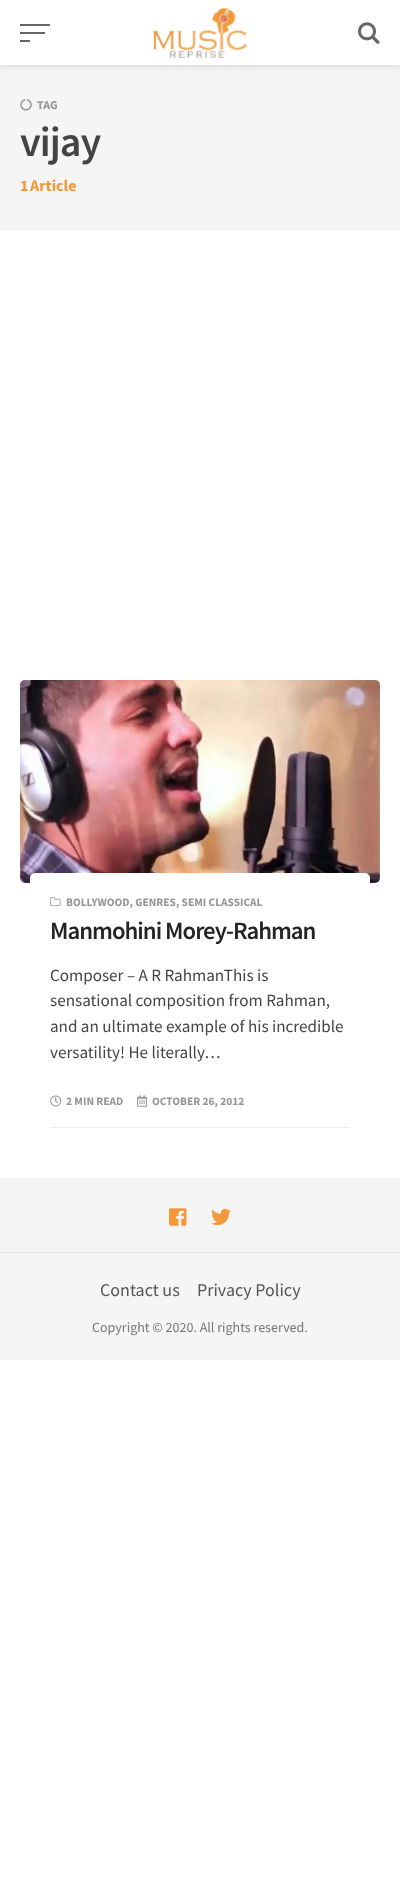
(async () => {
const canvas = document.querySelector("canvas")
canvas.width = 400
canvas.height = 1898
const c = canvas.getContext("2d")
c.miterLimit = 4
c.fontKerning = "normal"
function T(s,x,y){c.fillText(s,x,y)}
function R(x,y,w,h){c.fillRect(x,y,w,h)}
function Q(x,y,w,h,r){c.beginPath();c.roundRect(x,y,w,h,r);c.fill()}
async function I(src,x,y,w,h){const img=new Image();img.src=src;await img.decode();c.drawImage(img,x,y,w,h)}
c.fillStyle="#fff"
R(0,0,400,1898)
c.fillStyle="#f5f5f5"
R(0,65,400,164)
c.fillStyle="#0000001a"
c.filter="blur(3px)"
c.beginPath()
c.rect(0,2,400,65)
c.fill()
c.filter="none"
c.fillStyle="#fff"
R(0,0,400,65)
c.fillStyle="#666"
R(20,24,30,2)
R(20,32,25,2)
R(20,40,10,2)
await I("1.png",153,8,95,50)
await I("2.png",358,22,22,23)
c.fillStyle="#eee"
R(0,229,400,1)
await I("3.png",20,99,12,12)
c.font="bold 12px Source Sans Pro"
c.fillStyle="#969696"
T("TAG",37,109)
c.letterSpacing="-1px"
c.font="600 42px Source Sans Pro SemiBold"
c.fillStyle="#444"
T("vijay",20,156)
c.letterSpacing="0px"
c.font="bold 16px Source Sans Pro"
c.fillStyle="#f59839"
T("1",20,191)
T("Article",30,191)
c.fillStyle="#eee"
Q(20,680,360,203,5)
await I("5.png",185,770,30,22)
await I("4.png",20,680,360,203)
c.fillStyle="#fff"
Q(30,873,340,212,5)
await I("6.png",50,897,11,10)
c.font="bold 11.4px Source Sans Pro"
c.fillStyle="#969696"
T("BOLLYWOOD, GENRES, SEMI CLASSICAL",66,906)
c.letterSpacing="-1px"
c.font="600 24.75px Source Sans Pro SemiBold"
c.fillStyle="#242424"
T("Manmohini Morey-Rahman",50,939)
c.letterSpacing="0px"
c.font="17.1px Source Sans Pro"
c.fillStyle="#444"
T("Composer – A R RahmanThis is",50,981)
T("sensational composition from Rahman,",50,1006)
T("and an ultimate example of his incredible",50,1032)
T("versatility! He literally…",50,1058)
await I("7.png",50,1095,12,12)
c.font="bold 11.4px Source Sans Pro"
c.fillStyle="#969696"
T("2 MIN READ",66,1105)
await I("8.png",137,1095,10,12)
T("OCTOBER 26, 2012",152,1105)
c.fillStyle="#eee"
R(50,1127,300,1)
c.fillStyle="#f5f5f5"
R(0,1178,400,182)
c.fillStyle="#e5e5e5"
R(0,1252,400,1)
await I("9.png",169,1208,18,18)
await I("10.png",211,1208,20,18)
c.font="18px Source Sans Pro"
c.fillStyle="#555"
T("Contact us",100,1296)
T("Privacy Policy",197,1296)
c.font="14px Source Sans Pro"
c.fillStyle="#777"
T("Copyright © 2020. All rights reserved.",92,1332)
})()
